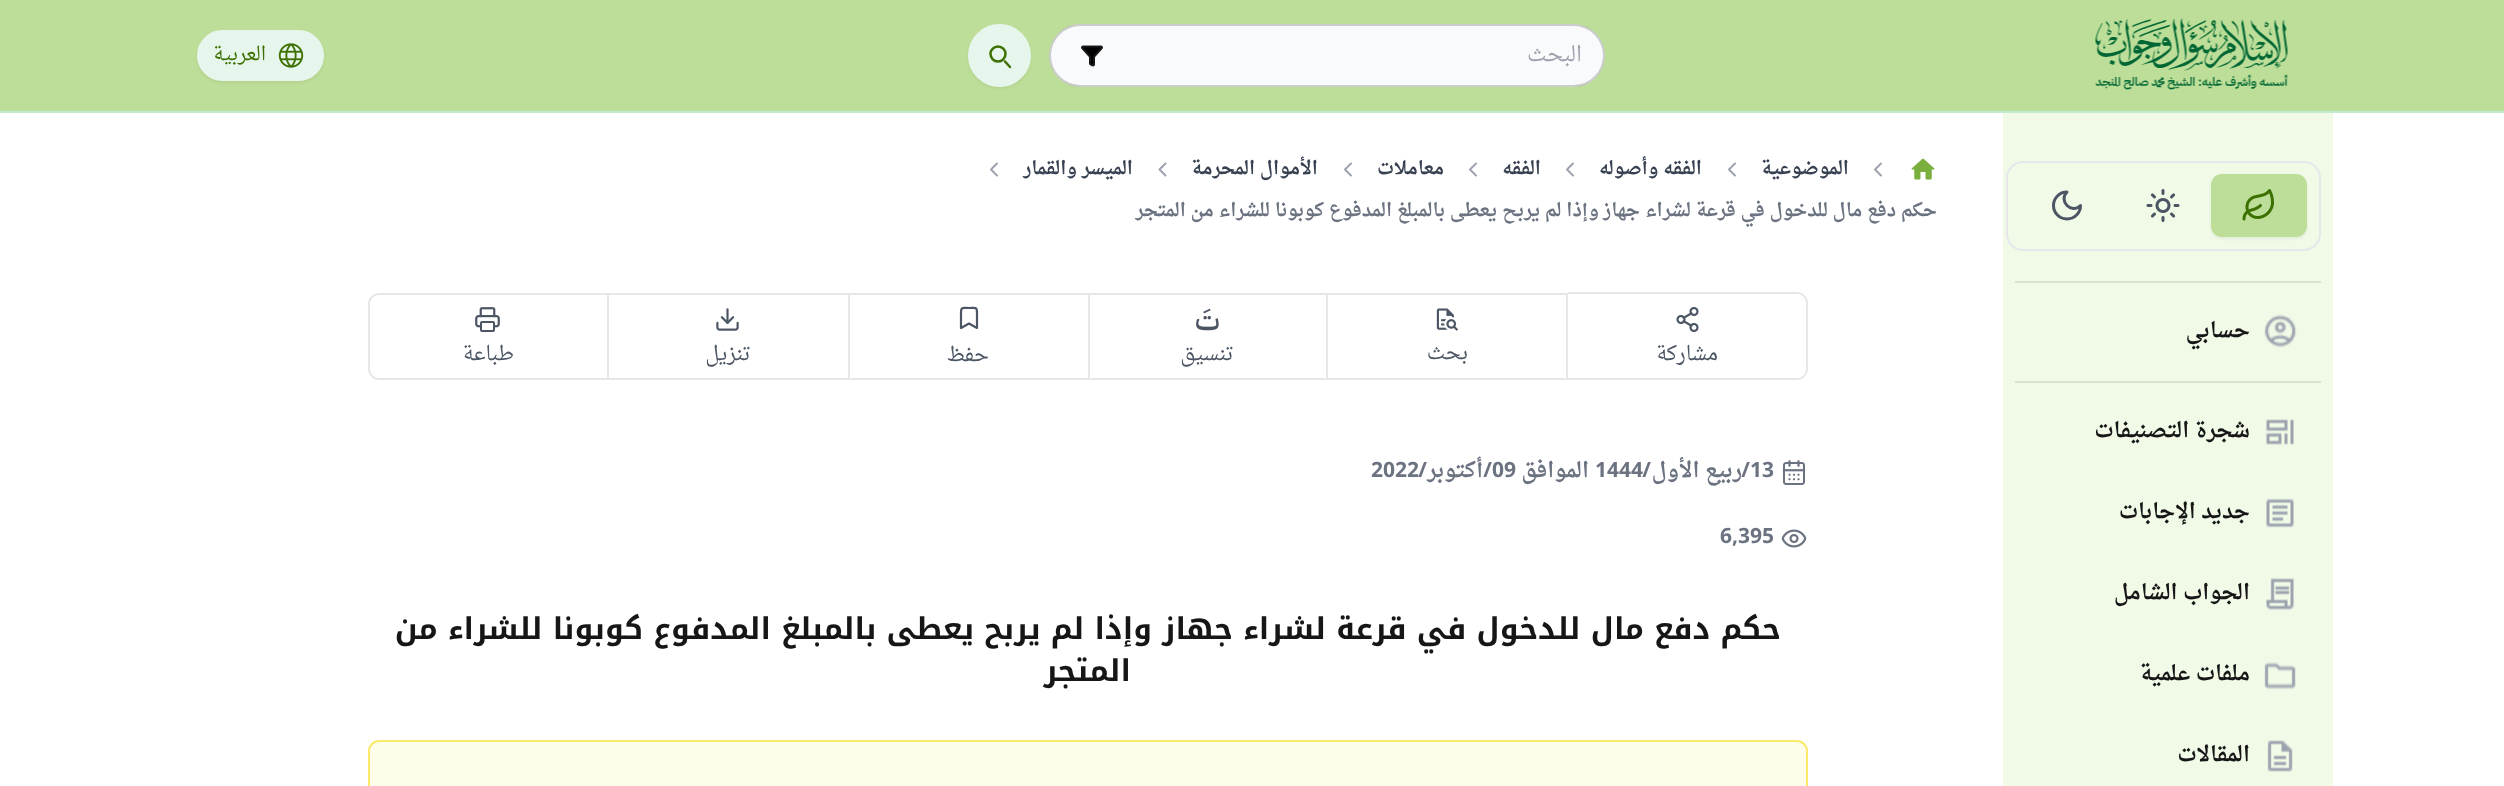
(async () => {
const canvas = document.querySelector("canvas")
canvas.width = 2504
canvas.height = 786
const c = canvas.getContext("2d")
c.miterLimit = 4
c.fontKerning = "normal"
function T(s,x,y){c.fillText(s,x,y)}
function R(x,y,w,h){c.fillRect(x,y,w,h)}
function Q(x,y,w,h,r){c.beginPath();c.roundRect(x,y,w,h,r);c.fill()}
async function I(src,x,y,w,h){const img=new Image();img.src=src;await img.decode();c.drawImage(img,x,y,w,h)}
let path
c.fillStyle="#fff"
R(0,0,2504,786)
c.fillStyle="#bdde98"
R(0,0,2504,111)
c.fillStyle="#c4ead1"
R(0,111,2504,2)
await I("1.png",2095,18,193,72)
c.fillStyle="#f9fafb"
Q(1049,24,556,63,31.5)
c.beginPath()
c.roundRect(1050,25,554,61,30.5)
c.strokeStyle="#16161633"
c.lineWidth=2
c.stroke()
c.direction="rtl"
c.font="21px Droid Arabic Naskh"
c.fillStyle="#9ca3af"
T("البحث",1582,61)
await I("2.png",1081,45,22,22)
c.fillStyle="#0000000d"
c.filter="blur(1.5px)"
c.beginPath()
c.roundRect(968,26,63,63,31.5)
c.fill()
c.filter="none"
c.fillStyle="#e7f6ec"
c.beginPath()
c.arc(999.5,55.5,30.5,0,7)
c.fill()
c.strokeStyle="#e7f6ec"
c.stroke()
path = new Path2D("M1010 67l-5-5.5")
c.strokeStyle="#3c7101"
c.lineWidth=2.5
c.lineCap="round"
c.lineJoin="round"
c.stroke(path)
c.beginPath()
c.arc(998,54,7.5,0,7)
c.stroke()
c.fillStyle="#0000000d"
c.filter="blur(1.5px)"
c.beginPath()
c.roundRect(197,32,127,51,25.5)
c.fill()
c.filter="none"
c.fillStyle="#e7f6ec"
c.beginPath()
c.roundRect(198,31,125,49,24.5)
c.fill()
c.strokeStyle="#e7f6ec"
c.lineWidth=2
c.lineJoin="miter"
c.stroke()
await I("3.png",278,43,26,25)
c.font="19px Droid Arabic Naskh"
c.fillStyle="#3c7101"
T("العربية",266,60)
c.fillStyle="#f1f9e7"
R(2003,113,330,673)
c.beginPath()
c.roundRect(2007,162,313,88,16)
c.strokeStyle="#e5e7eb"
c.stroke()
c.fillStyle="#0000000d"
c.filter="blur(1.5px)"
c.beginPath()
c.roundRect(2211,176,96,63,11)
c.fill()
c.filter="none"
c.fillStyle="#bdde98"
Q(2211,174,96,63,11)
await I("4.png",2242,189,32,32)
await I("5.png",2146,189,34,33)
path = new Path2D("M2067 192c-9 9 4.5 22.5 13.5 13.5c0 7.5-6 13.5-13.5 13.5c-7.5 0-13.5-6-13.5-13.5c0-7.5 6-13.5 13.5-13.5z")
c.strokeStyle="#4b5563"
c.lineWidth=3
c.lineJoin="round"
c.stroke(path)
c.fillStyle="#dbe2d2"
R(2015,281,306,2)
await I("6.png",2264,314,33,34)
c.font="bold 21px Droid Arabic Naskh"
c.fillStyle="#161616"
T("حسابي",2250,337)
c.fillStyle="#dbe2d2"
R(2015,381,306,2)
await I("7.png",2266,419,28,26)
c.fillStyle="#161616"
T("شجرة التصنيفات",2250,437)
await I("8.png",2266,498,28,30)
T("جديد الإجابات",2250,518)
await I("9.png",2266,578,28,32)
T("الجواب الشامل",2250,599)
await I("10.png",2264,662,32,28)
T("ملفات علمية",2250,680)
await I("11.png",2267,740,26,32)
T("المقالات",2250,761)
await I("12.png",1911,158,24,22)
path = new Path2D("M1881 163.5l-6 6l6 6")
c.strokeStyle="#9ca3af"
c.lineWidth=2
c.stroke(path)
c.font="bold 18.4px Droid Arabic Naskh"
c.fillStyle="#374151"
T("الموضوعية",1849,174)
path = new Path2D("M1735 163.5l-6 6l6 6")
c.stroke(path)
T("الفقه وأصوله",1702,174)
path = new Path2D("M1573 163.5l-6 6l6 6")
c.stroke(path)
T("الفقه",1541,174)
path = new Path2D("M1476 163.5l-6 6l6 6")
c.stroke(path)
T("معاملات",1444,174)
path = new Path2D("M1351 163.5l-6 6l6 6")
c.stroke(path)
T("الأموال المحرمة",1318,174)
path = new Path2D("M1165.5 163.5l-6 6l6 6")
c.stroke(path)
T("الميسر والقمار",1133,174)
path = new Path2D("M997 163.5l-6 6l6 6")
c.stroke(path)
c.fillStyle="#6b7280"
T("حكم دفع مال للدخول في قرعة لشراء جهاز",1937,216)
T("وإذا لم يربح يعطى بالمبلغ المدفوع كوبونا للشراء من المتجر",1599,216)
c.fillStyle="#e5e7eb"
path = new Path2D("M1568 292h229c6 0 11 5 11 11v66c0 6-5 11-11 11h-229zm0 2h229c5 0 9 4 9 9v66c0 5-4 9-9 9h-229z")
c.fill(path,"evenodd")
await I("13.png",1676,306,23,27)
c.font="20px Droid Arabic Naskh"
c.fillStyle="#4b5563"
T("مشاركة",1718,360)
c.fillStyle="#e5e7eb"
R(609,293,959,2)
R(1566,293,2,87)
R(1328,378,240,2)
await I("14.png",1436,308,23,23)
c.fillStyle="#4b5563"
T("بحث",1468,359)
c.fillStyle="#e5e7eb"
R(1326,293,2,87)
R(1089,378,239,2)
await I("15.png",1196,308,23,23)
c.fillStyle="#4b5563"
T("تنسيق",1234,360)
c.fillStyle="#e5e7eb"
R(1088,293,2,87)
R(849,378,240,2)
path = new Path2D("M977 328l-8-4.5l-8 4.5v-15c0-6.5 1.5-5 8-5c6.5 0 8-1.5 8 5z")
c.strokeStyle="#4b5563"
c.lineWidth=2.2
c.stroke(path)
c.fillStyle="#4b5563"
T("حفظ",989,361)
c.fillStyle="#e5e7eb"
R(848,293,2,87)
R(609,378,240,2)
await I("16.png",716,308,23,23)
c.fillStyle="#4b5563"
T("تنزيل",751,360)
c.beginPath()
c.roundRect(369,294,239,85,[10,0,0,10])
c.strokeStyle="#e5e7eb"
c.lineWidth=2
c.lineJoin="miter"
c.stroke()
await I("17.png",475,307,25,25)
T("طباعة",514,360)
await I("18.png",1782,460,24,25)
c.direction="ltr"
c.font="bold 21px Noto Kufi Arabic"
c.fillStyle="#6b7280"
T("13",1750,477)
c.direction="rtl"
T("/",1750,477)
c.font="bold 21px Droid Arabic Naskh"
T("ربيع الأول",1742,477)
c.direction="ltr"
c.font="bold 21px Noto Kufi Arabic"
T("1444",1595,477)
c.direction="rtl"
T("/",1651,477)
c.font="bold 21px Droid Arabic Naskh"
T("الموافق",1589,477)
c.direction="ltr"
c.font="bold 21px Noto Kufi Arabic"
T("09",1492,477)
c.direction="rtl"
T("/",1492,477)
T("/",1427,477)
c.font="bold 21px Droid Arabic Naskh"
T("أكتوبر",1483,477)
c.direction="ltr"
c.font="bold 21px Noto Kufi Arabic"
T("2022",1371,477)
await I("19.png",1781,529,26,19)
T("6,395",1720,543)
c.direction="rtl"
c.font="bold 30px Noto Kufi Arabic"
c.fillStyle="#161616"
T("حكم دفع مال للدخول في قرعة لشراء جهاز",1781,639)
T("وإذا لم يربح يعطى بالمبلغ المدفوع كوبونا للشراء من",1152,639)
T("المتجر",1131,681)
c.fillStyle="#fdfdea"
c.beginPath()
c.roundRect(369,741,1438,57,10)
c.fill()
c.strokeStyle="#fce96a"
c.stroke()
})()
